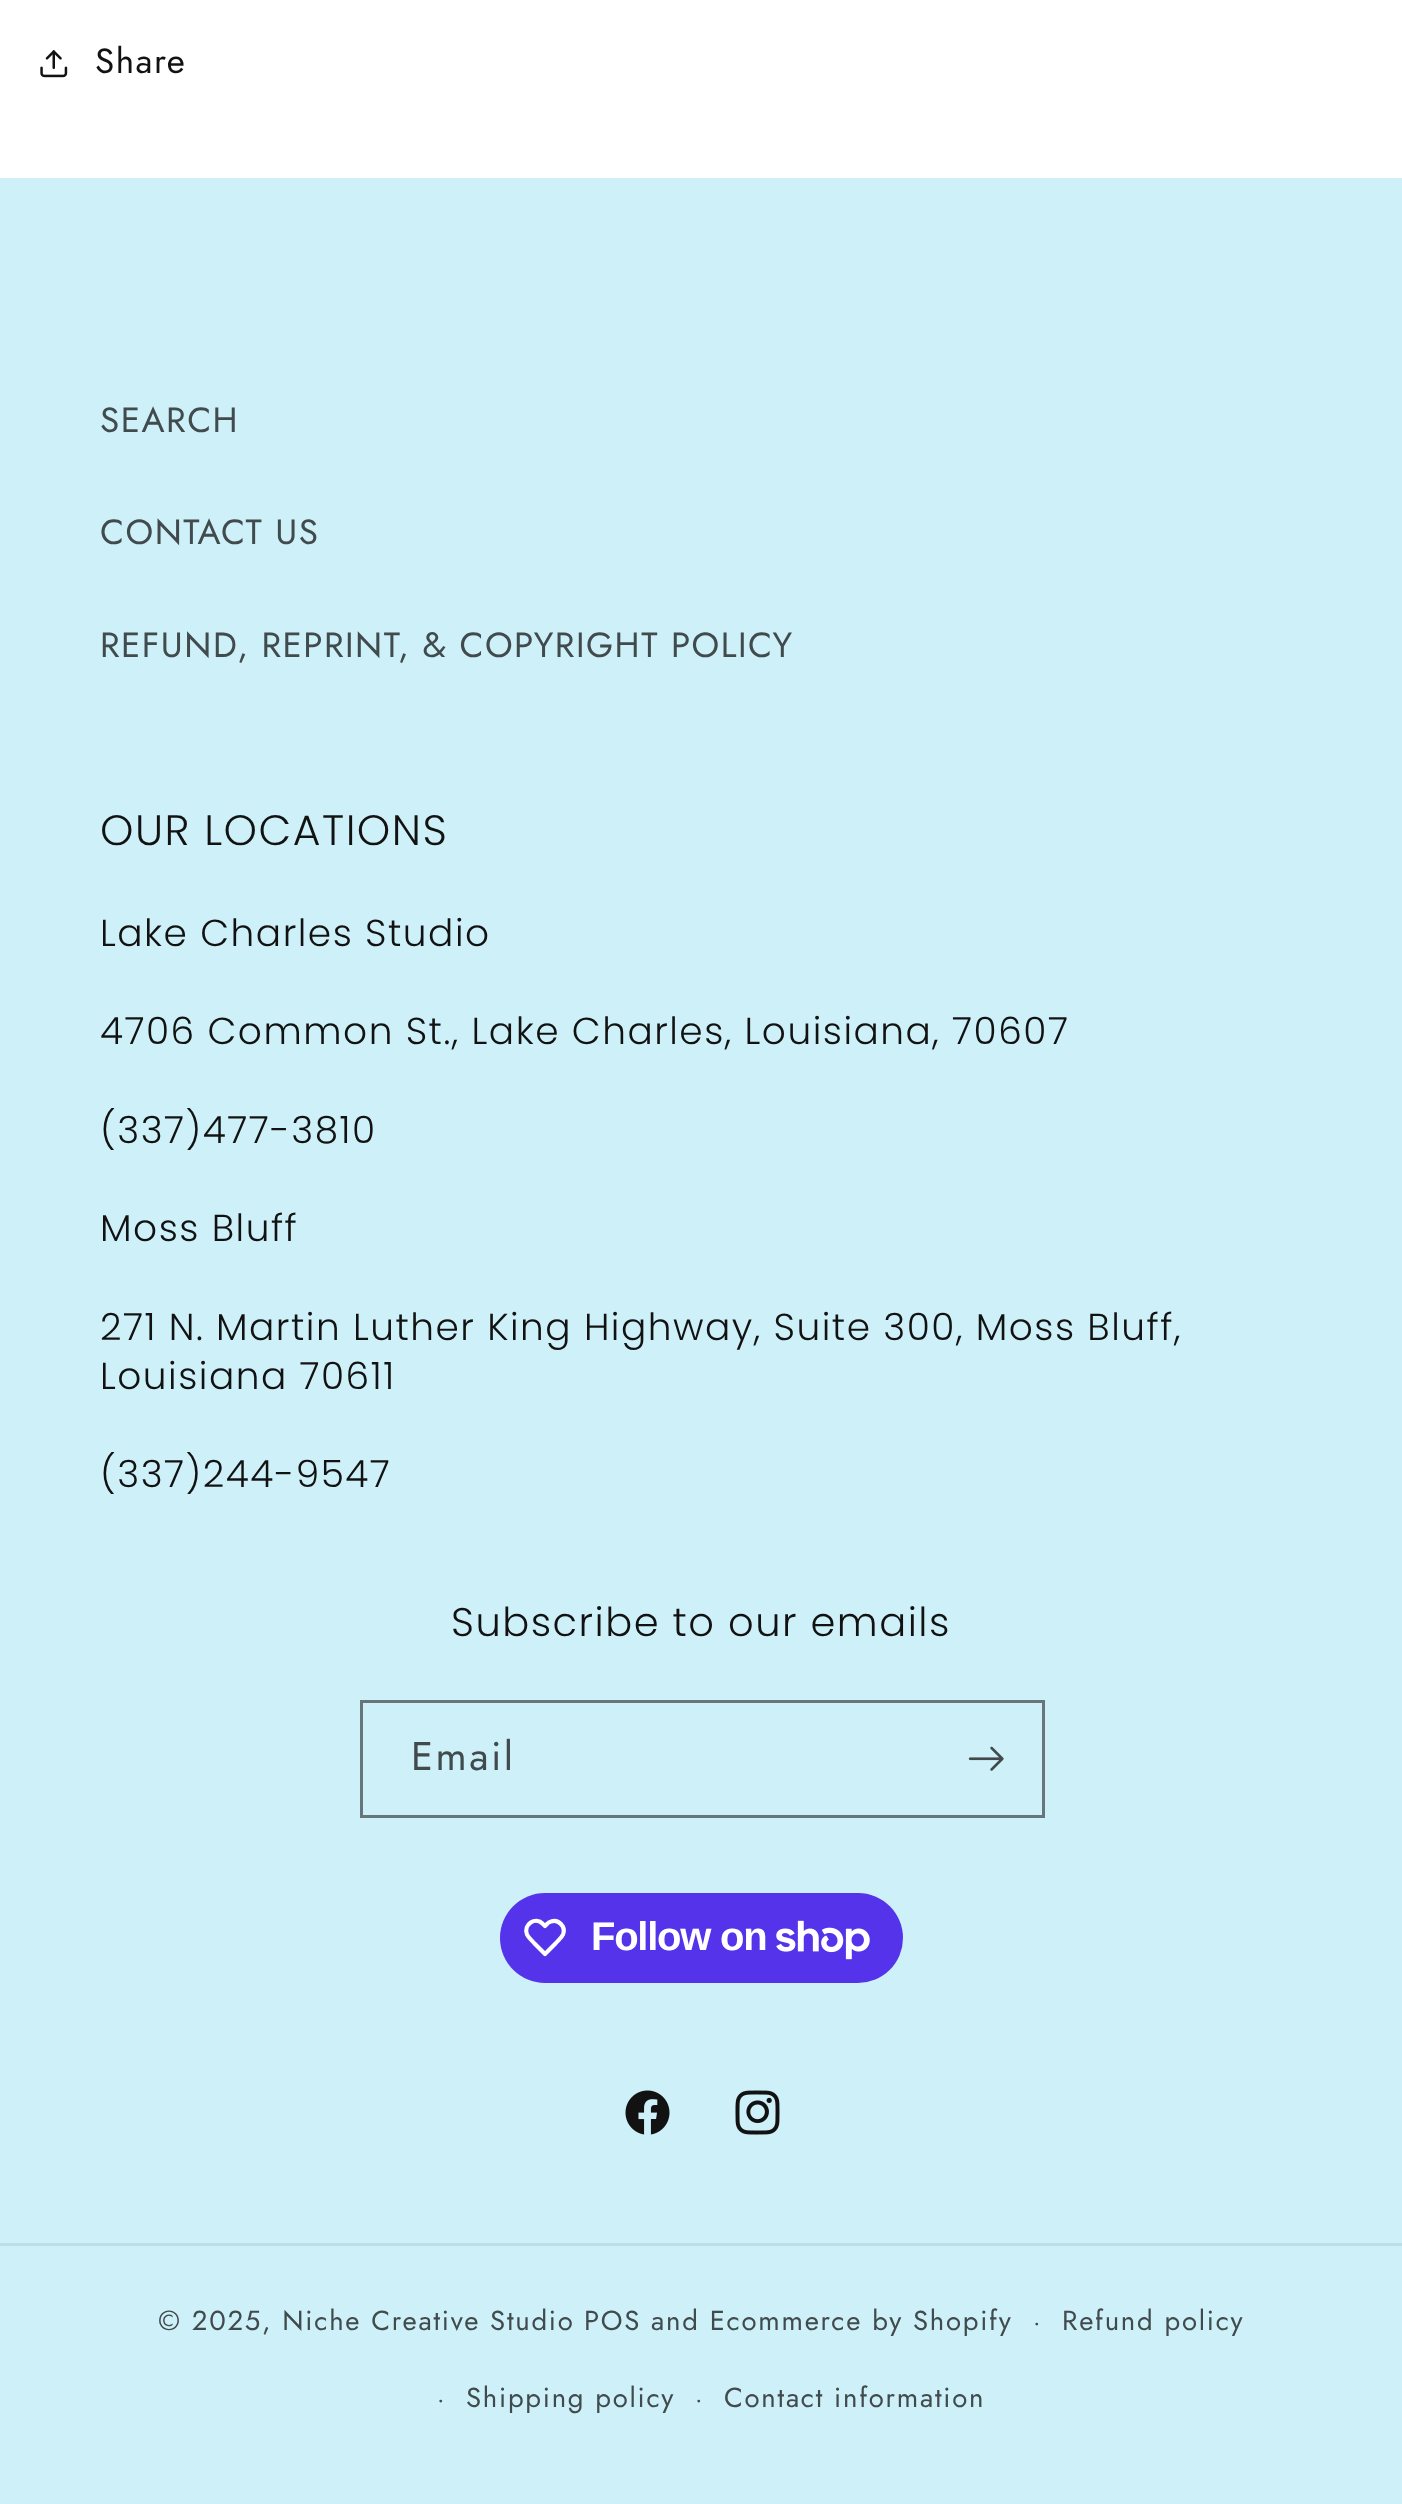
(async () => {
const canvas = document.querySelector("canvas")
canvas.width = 1402
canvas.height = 2504
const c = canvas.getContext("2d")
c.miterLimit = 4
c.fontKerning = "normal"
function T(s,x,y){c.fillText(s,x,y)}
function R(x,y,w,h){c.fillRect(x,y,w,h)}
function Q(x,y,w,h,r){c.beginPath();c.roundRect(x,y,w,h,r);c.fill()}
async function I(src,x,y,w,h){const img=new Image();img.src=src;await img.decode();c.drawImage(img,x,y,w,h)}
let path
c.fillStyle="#fff"
R(0,0,1402,2504)
await I("1.png",40,50,28,28)
c.letterSpacing="1.5px"
c.font="35px Jost"
c.fillStyle="#121212"
T("Share",95,73)
c.fillStyle="#cdf0f9"
R(0,178,1402,2326)
c.fillStyle="#414a4c"
T("SEARCH",100,432)
T("CONTACT US",100,544)
T("REFUND, REPRINT, & COPYRIGHT POLICY",100,657)
c.font="300 42.5px Poppins"
c.fillStyle="#121212"
T("OUR LOCATIONS",100,845)
c.font="300 37.5px Poppins"
T("Lake Charles Studio",100,946)
T("4706 Common St., Lake Charles, Louisiana, 70607",100,1044)
T("(337)477-3810",100,1143)
T("Moss Bluff",100,1241)
T("271 N. Martin Luther King Highway, Suite 300, Moss Bluff,",100,1340)
T("Louisiana 70611",100,1389)
T("(337)244-9547",100,1487)
c.font="300 40px Poppins"
T("Subscribe to our emails",451,1636)
c.strokeStyle="#66767a"
c.lineWidth=3
c.strokeRect(361.5,1701.5,682,115)
c.letterSpacing="2.5px"
c.font="40px Jost"
c.fillStyle="#414a4c"
T("Email",411,1770)
await I("2.png",968,1746,36,25)
c.fillStyle="#5433eb"
Q(500,1893,403,90,45)
path = new Path2D("M543 1924l2 2c2-2 3.5-4 6-4.5c8-2.5 15 5.5 12 13c-1.5 3.5-5 6-7.5 9l-10.5 10.5l-10.5-10.5c-2.5-3-6-5.5-7.5-9c-4-10 8.5-18.5 16-10.5z")
c.strokeStyle="#fff"
c.lineWidth=4.2
c.lineJoin="round"
c.stroke(path)
c.letterSpacing="-1.25px"
c.font="bold 40px Liberation Sans"
c.fillStyle="#fff"
T("Follow on",591,1950)
await I("3.png",776,1920,94,40)
await I("4.png",625,2090,45,45)
await I("5.png",735,2090,45,45)
c.fillStyle="#bedee7"
R(0,2243,1402,3)
c.letterSpacing="1.75px"
c.font="27.5px Jost"
c.fillStyle="#414a4c"
T("© 2025, Niche Creative Studio",158,2330)
c.font="25px Jost"
T("·",1033,2330)
c.font="27.5px Jost"
T("Refund policy",1062,2330)
c.font="25px Jost"
T("·",437,2407)
c.font="27.5px Jost"
T("Shipping policy",466,2407)
c.font="25px Jost"
T("·",695,2407)
c.font="27.5px Jost"
T("Contact information",724,2407)
T("POS and Ecommerce by Shopify",584,2330)
})()
